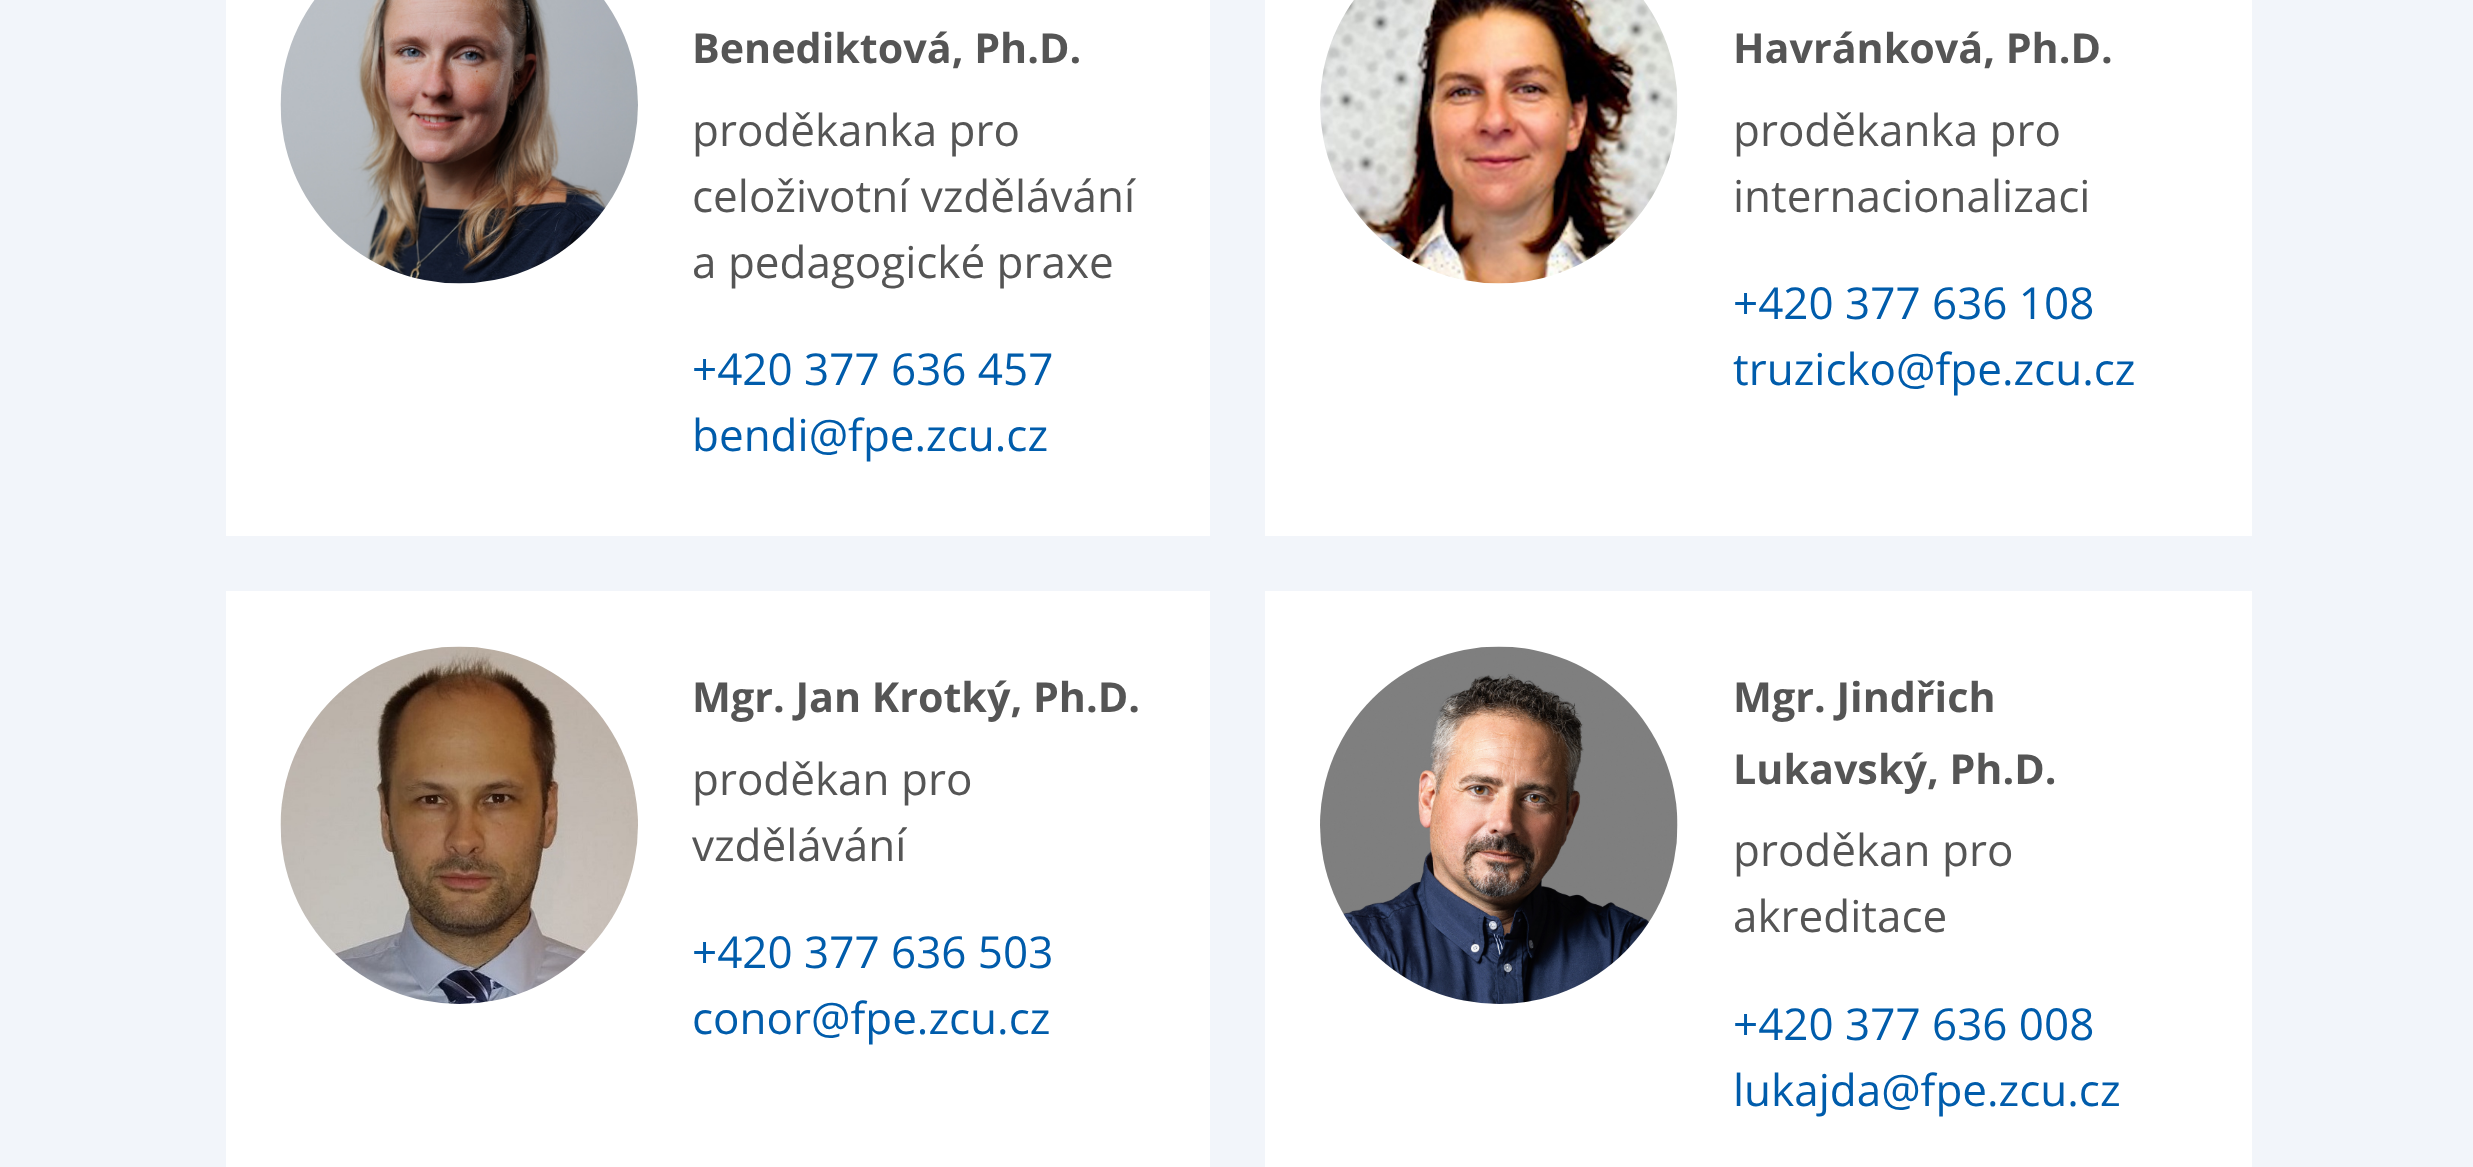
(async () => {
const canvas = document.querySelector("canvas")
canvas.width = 2473
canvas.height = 1167
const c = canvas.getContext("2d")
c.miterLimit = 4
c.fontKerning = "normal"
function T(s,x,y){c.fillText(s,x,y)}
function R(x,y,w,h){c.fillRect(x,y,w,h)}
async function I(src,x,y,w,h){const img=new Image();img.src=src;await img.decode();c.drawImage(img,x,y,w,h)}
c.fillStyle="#f2f5fa"
R(0,0,2473,1167)
c.fillStyle="#fff"
R(226,0,984,536)
await I("1.png",280,0,358,284)
c.font="bold 41.25px Open Sans"
c.fillStyle="#555"
T("Benediktová, Ph.D.",692,63)
c.font="44px Open Sans"
T("proděkanka pro",692,146)
T("celoživotní vzdělávání",692,212)
T("a pedagogické praxe",692,278)
c.fillStyle="#005cab"
T("+420 377 636 457",692,385)
T("bendi@fpe.zcu.cz",692,451)
c.fillStyle="#fff"
R(1265,0,987,536)
await I("2.png",1320,0,358,284)
c.font="bold 41.25px Open Sans"
c.fillStyle="#555"
T("Havránková, Ph.D.",1733,63)
c.font="44px Open Sans"
T("proděkanka pro",1733,146)
T("internacionalizaci",1733,212)
c.fillStyle="#005cab"
T("+420 377 636 108",1733,319)
T("truzicko@fpe.zcu.cz",1733,385)
c.fillStyle="#fff"
R(226,591,984,576)
await I("3.png",280,646,358,358)
c.font="bold 41.25px Open Sans"
c.fillStyle="#555"
T("Mgr. Jan Krotký, Ph.D.",692,712)
c.font="44px Open Sans"
T("proděkan pro",692,795)
T("vzdělávání",692,861)
c.fillStyle="#005cab"
T("+420 377 636 503",692,968)
T("conor@fpe.zcu.cz",692,1034)
c.fillStyle="#fff"
R(1265,591,987,576)
await I("4.png",1320,646,358,358)
c.font="bold 41.25px Open Sans"
c.fillStyle="#555"
T("Mgr. Jindřich",1733,712)
T("Lukavský, Ph.D.",1733,784)
c.font="44px Open Sans"
T("proděkan pro",1733,866)
T("akreditace",1733,932)
c.fillStyle="#005cab"
T("+420 377 636 008",1733,1040)
T("lukajda@fpe.zcu.cz",1733,1106)
})()
